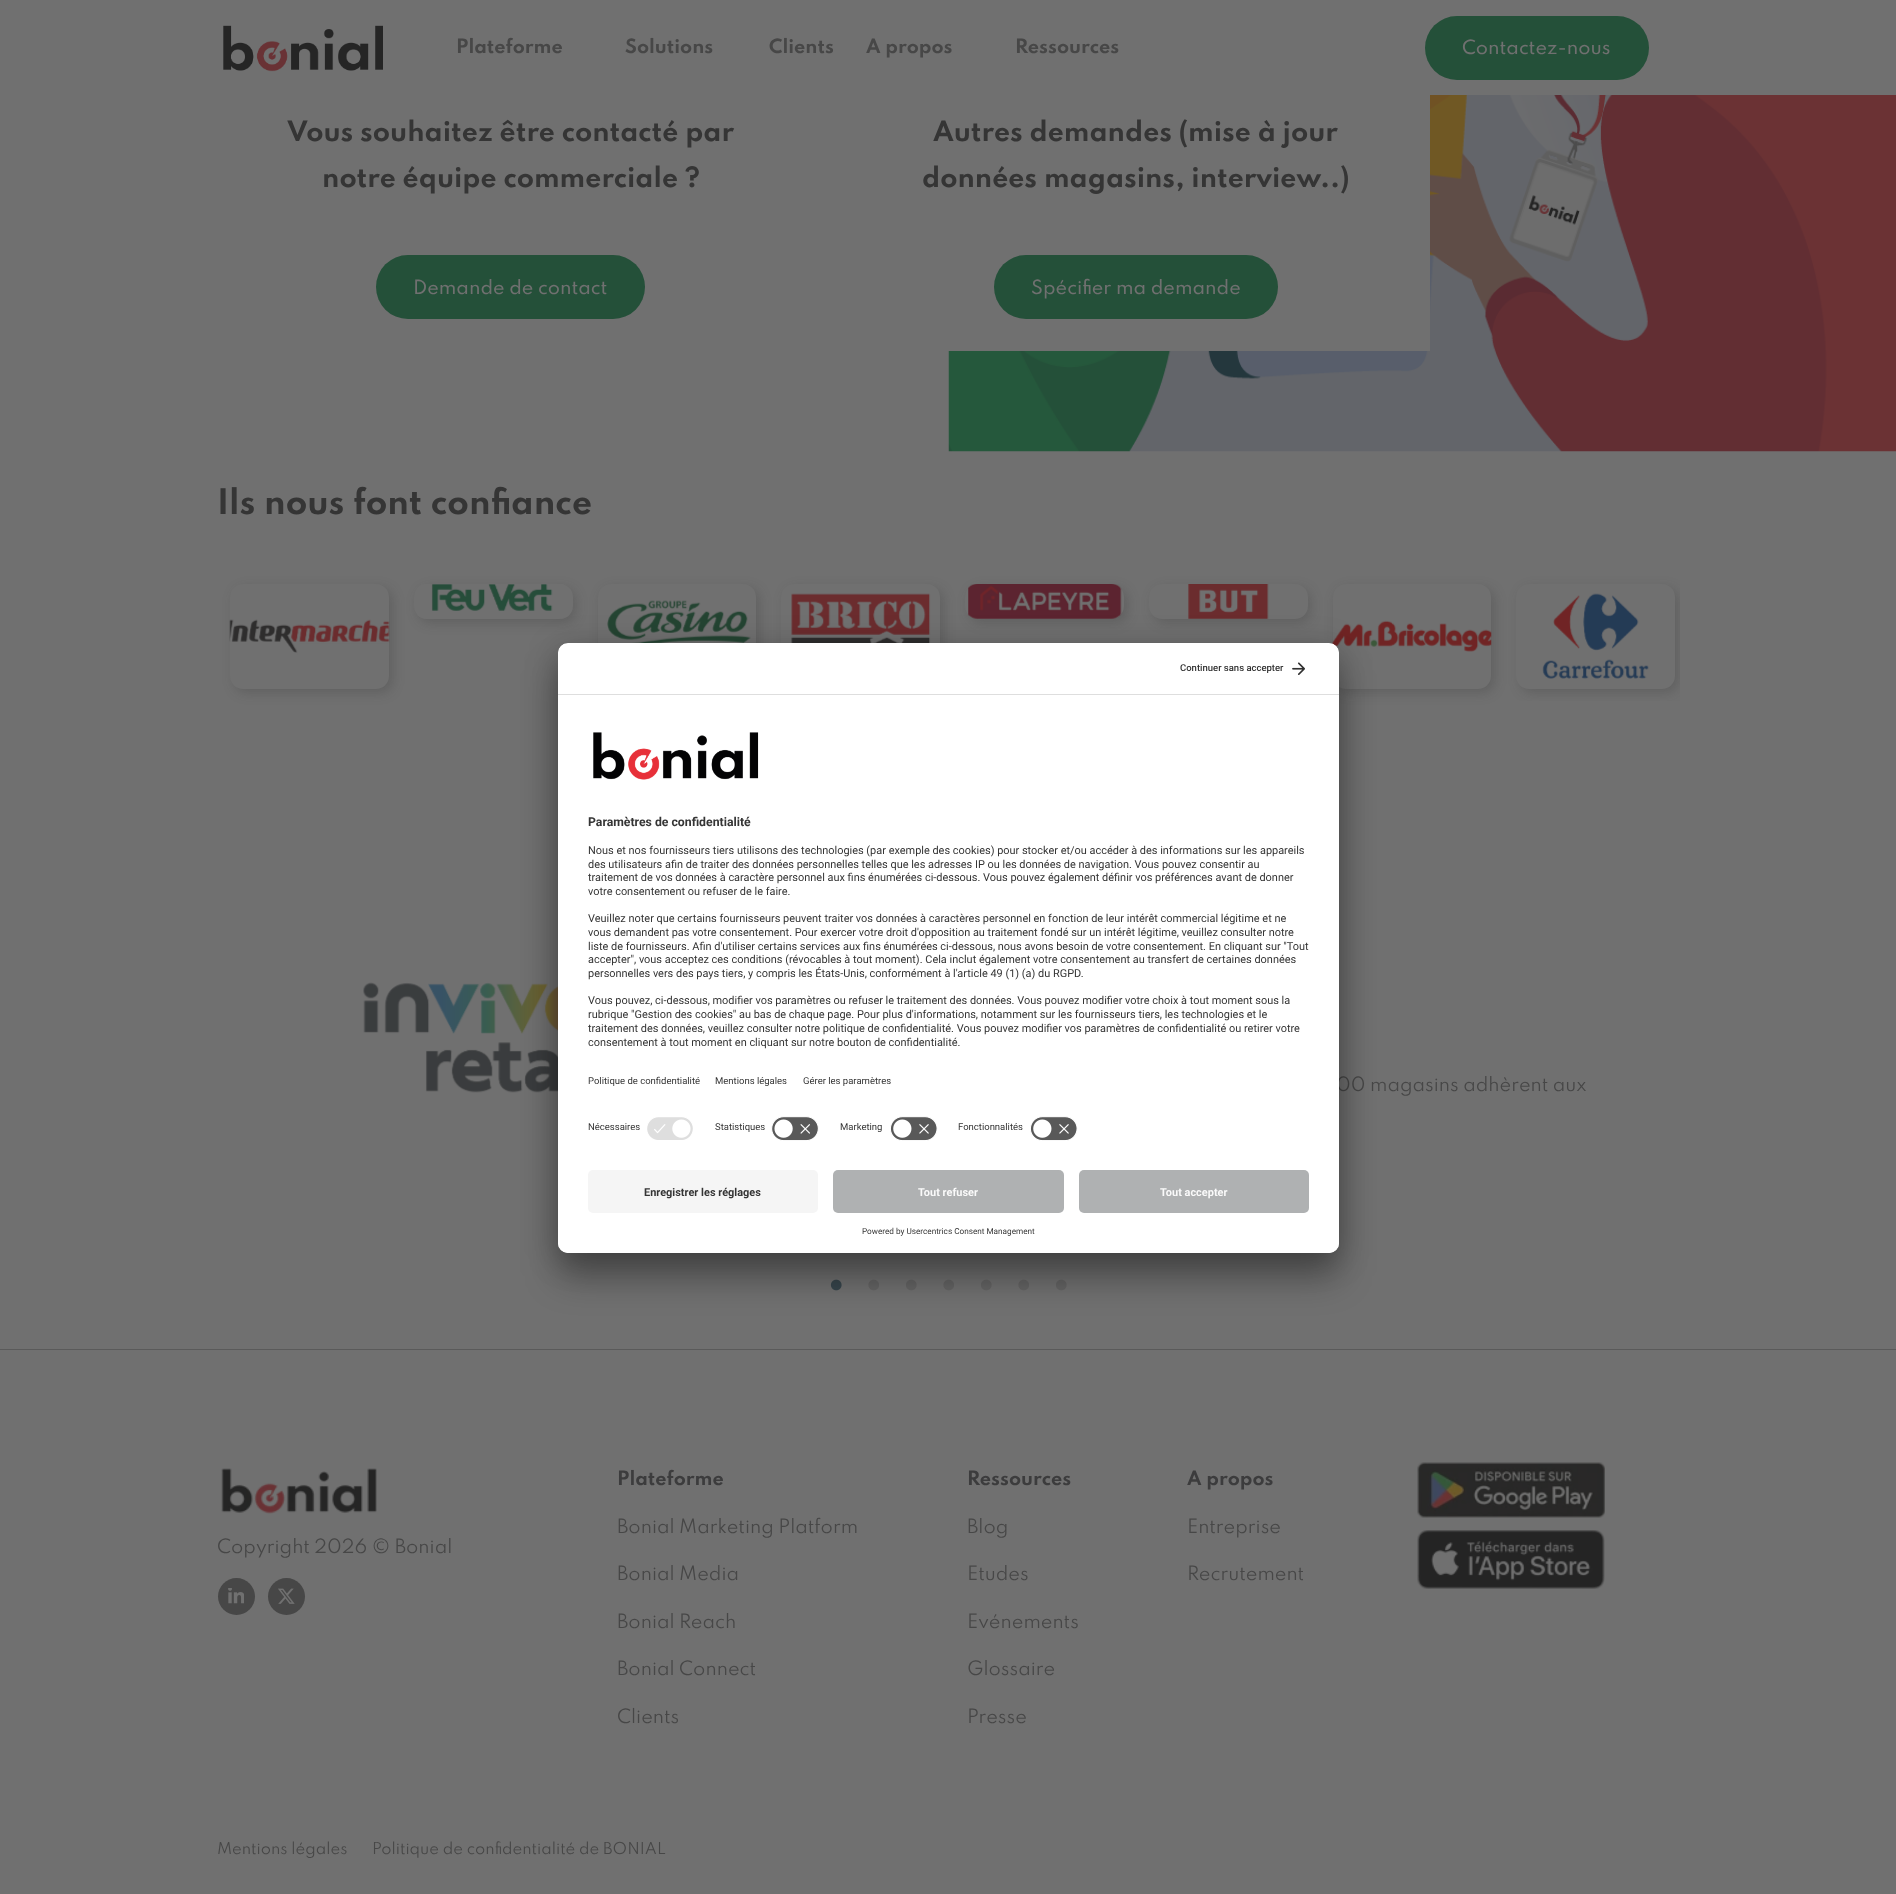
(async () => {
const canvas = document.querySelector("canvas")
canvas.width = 1896
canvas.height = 1894
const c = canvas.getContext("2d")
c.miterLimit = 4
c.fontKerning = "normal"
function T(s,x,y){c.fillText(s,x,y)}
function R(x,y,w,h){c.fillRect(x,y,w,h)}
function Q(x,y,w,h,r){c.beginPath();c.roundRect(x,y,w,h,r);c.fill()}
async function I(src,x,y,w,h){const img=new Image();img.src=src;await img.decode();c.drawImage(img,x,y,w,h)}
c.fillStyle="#707070"
R(0,0,1896,1894)
await I("1.png",223,25,160,47)
c.font="100 17.5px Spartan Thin"
c.fillStyle="#474747"
T("Plateforme",456,53)
T("Solutions",625,53)
T("Clients",769,53)
T("A propos",866,53)
T("Ressources",1015,53)
c.fillStyle="#245039"
Q(1425,16,224,64,32)
c.font="100 17.5px 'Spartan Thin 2'"
c.fillStyle="#707070"
T("Contactez-nous",1462,54)
c.font="100 25px Spartan Thin"
c.fillStyle="#353535"
T("Vous souhaitez être contacté par",287,141)
T("notre équipe commerciale ?",322,187)
c.fillStyle="#245039"
Q(376,255,269,64,32)
c.font="100 17.5px 'Spartan Thin 2'"
c.fillStyle="#707070"
T("Demande de contact",413,294)
await I("2.png",948,95,948,357)
R(948,95,482,256)
c.font="100 25px Spartan Thin"
c.fillStyle="#353535"
T("Autres demandes (mise à jour",933,141)
T("données magasins, interview..)",922,187)
c.fillStyle="#245039"
Q(994,255,284,64,32)
c.font="100 17.5px 'Spartan Thin 2'"
c.fillStyle="#707070"
T("Spécifier ma demande",1031,294)
c.font="100 31.25px Spartan Thin"
c.fillStyle="#353535"
T("Ils nous font confiance",217,514)
c.fillStyle="#24242433"
c.filter="blur(6px)"
c.beginPath()
c.roundRect(234,588,159,105,13)
c.fill()
c.filter="none"
c.fillStyle="#707070"
Q(230,584,159,105,13)
await I("3.png",229,619,161,36)
c.fillStyle="#24242433"
c.filter="blur(6px)"
c.beginPath()
c.roundRect(418,588,158,35,13)
c.fill()
c.filter="none"
c.fillStyle="#707070"
Q(414,584,159,35,13)
await I("4.png",417,584,147,35)
c.fillStyle="#24242433"
c.filter="blur(6px)"
c.beginPath()
c.roundRect(601,588,159,105,13)
c.fill()
c.filter="none"
c.fillStyle="#707070"
Q(598,584,158,105,13)
await I("5.png",607,600,144,43)
c.fillStyle="#24242433"
c.filter="blur(6px)"
c.beginPath()
c.roundRect(785,588,159,105,13)
c.fill()
c.filter="none"
c.fillStyle="#707070"
Q(781,584,159,105,13)
await I("6.png",791,593,140,50)
c.fillStyle="#24242433"
c.filter="blur(6px)"
c.beginPath()
c.roundRect(969,588,159,35,13)
c.fill()
c.filter="none"
c.fillStyle="#707070"
Q(965,584,159,35,13)
await I("7.png",968,584,154,35)
c.fillStyle="#24242433"
c.filter="blur(6px)"
c.beginPath()
c.roundRect(1153,588,158,35,13)
c.fill()
c.filter="none"
c.fillStyle="#707070"
Q(1149,584,159,35,13)
await I("8.png",1188,584,81,35)
c.fillStyle="#24242433"
c.filter="blur(6px)"
c.beginPath()
c.roundRect(1336,588,159,105,13)
c.fill()
c.filter="none"
c.fillStyle="#707070"
Q(1333,584,158,105,13)
await I("9.png",1332,620,160,32)
c.save()
c.beginPath()
c.rect(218,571,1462,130)
c.clip()
c.fillStyle="#24242433"
c.filter="blur(6px)"
c.beginPath()
c.roundRect(1520,588,159,105,13)
c.fill()
c.filter="none"
c.restore()
Q(1516,584,159,105,13)
await I("10.png",1542,593,107,86)
await I("11.png",363,982,195,111)
c.font="100 17.5px 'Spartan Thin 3'"
c.fillStyle="#474747"
T("00 magasins adhèrent aux",1336,1091)
await I("12.png",830,1279,12,12)
await I("13.png",868,1279,11,12)
await I("14.png",906,1279,11,12)
await I("13.png",943,1279,11,12)
await I("14.png",981,1279,11,12)
await I("13.png",1018,1279,11,12)
await I("14.png",1056,1279,11,12)
c.fillStyle="#5a5a5a"
R(0,1349,1896,1)
await I("15.png",221,1468,156,46)
c.fillStyle="#474747"
T("Copyright 2026 © Bonial",217,1553)
c.beginPath()
c.arc(236.5,1596.5,18.5,0,7)
c.fill()
await I("16.png",228,1588,16,16)
c.beginPath()
c.arc(286.5,1596.5,18.5,0,7)
c.fill()
await I("17.png",278,1588,17,16)
c.font="100 17.5px Spartan Thin"
c.fillStyle="#3c3c3d"
T("Plateforme",617,1485)
c.font="100 17.5px 'Spartan Thin 3'"
c.fillStyle="#474747"
T("Bonial Marketing Platform",617,1533)
T("Bonial Media",617,1580)
T("Bonial Reach",617,1628)
T("Bonial Connect",617,1675)
T("Clients",617,1723)
c.font="100 17.5px Spartan Thin"
c.fillStyle="#3c3c3d"
T("Ressources",967,1485)
c.font="100 17.5px 'Spartan Thin 3'"
c.fillStyle="#474747"
T("Blog",967,1533)
T("Etudes",967,1580)
T("Evénements",967,1628)
T("Glossaire",967,1675)
T("Presse",967,1723)
c.font="100 17.5px Spartan Thin"
c.fillStyle="#3c3c3d"
T("A propos",1187,1485)
c.font="100 17.5px 'Spartan Thin 3'"
c.fillStyle="#474747"
T("Entreprise",1187,1533)
T("Recrutement",1187,1580)
await I("18.png",1417,1462,188,56)
await I("19.png",1417,1530,188,59)
c.font="100 14.6px 'Spartan Thin 3'"
T("Mentions légales",217,1854)
T("Politique de confidentialité de BONIAL",372,1854)
c.fillStyle="#0000004d"
c.filter="blur(17.5px)"
c.beginPath()
c.roundRect(558,668,781,610,10)
c.fill()
c.filter="none"
c.fillStyle="#00000038"
c.filter="blur(16px)"
c.beginPath()
c.roundRect(558,649,781,610,10)
c.fill()
c.filter="none"
c.fillStyle="#fff"
Q(558,643,781,610,10)
c.save()
c.beginPath()
c.roundRect(558,643,781,610,10)
c.clip()
c.beginPath()
c.roundRect(558,643,781,517,[10,10,0,0])
c.clip()
R(558,644,781,50)
c.restore()
c.fillStyle="#dedede"
R(558,694,781,1)
c.font="500 9.5px Roboto"
c.fillStyle="#353535"
T("Continuer sans accepter",1180,671)
await I("20.png",1292,662,13,13)
await I("21.png",593,732,166,48)
c.font="bold 12.25px Roboto"
T("Paramètres de confidentialité",588,826)
c.font="10.95px Roboto"
T("Nous et nos fournisseurs tiers utilisons des technologies (par exemple des cookies) pour stocker et/ou accéder à des informations sur les appareils",588,854)
T("des utilisateurs afin de traiter des données personnelles telles que les adresses IP ou les données de navigation. Vous pouvez consentir au",588,868)
T("traitement de vos données à caractère personnel aux fins énumérées ci-dessous. Vous pouvez également définir vos préférences avant de donner",588,881)
T("votre consentement ou refuser de le faire.",588,895)
T("Veuillez noter que certains fournisseurs peuvent traiter vos données à caractères personnel en fonction de leur intérêt commercial légitime et ne",588,922)
T("vous demandent pas votre consentement. Pour exercer votre droit d'opposition au traitement fondé sur un intérêt légitime, veuillez consulter notre",588,936)
T("liste de fournisseurs. Afin d'utiliser certains services aux fins énumérées ci-dessous, nous avons besoin de votre consentement. En cliquant sur \"Tout",588,950)
T("accepter\", vous acceptez ces conditions (révocables à tout moment). Cela inclut également votre consentement au transfert de certaines données",588,963)
T("personnelles vers des pays tiers, y compris les États-Unis, conformément à l'article 49 (1) (a) du RGPD.",588,977)
T("Vous pouvez, ci-dessous, modifier vos paramètres ou refuser le traitement des données. Vous pouvez modifier votre choix à tout moment sous la",588,1004)
T("rubrique \"Gestion des cookies\" au bas de chaque page. Pour plus d'informations, notamment sur les fournisseurs tiers, les technologies et le",588,1018)
T("traitement des données, veuillez consulter notre politique de confidentialité. Vous pouvez modifier vos paramètres de confidentialité ou retirer votre",588,1032)
T("consentement à tout moment en cliquant sur notre bouton de confidentialité.",588,1046)
c.font="9.5px Roboto"
T("Politique de confidentialité",588,1084)
T("Mentions légales",715,1084)
T("Gérer les paramètres",803,1084)
T("Nécessaires",588,1130)
await I("22.png",647,1117,46,23)
T("Statistiques",715,1130)
await I("23.png",771,1116,48,25)
T("Marketing",840,1130)
await I("24.png",890,1116,48,25)
T("Fonctionnalités",958,1130)
await I("24.png",1030,1116,48,25)
c.fillStyle="#fff"
c.beginPath()
c.roundRect(558,1160,781,93,[0,0,10,10])
c.fill()
c.fillStyle="#f5f5f5"
Q(588,1170,230,43,5)
c.font="bold 10.95px Roboto"
c.fillStyle="#353535"
T("Enregistrer les réglages",644,1196)
c.fillStyle="#afb1b2"
Q(833,1170,231,43,5)
c.fillStyle="#fafafa"
T("Tout refuser",918,1196)
c.fillStyle="#afb1b2"
Q(1079,1170,230,43,5)
c.fillStyle="#fafafa"
T("Tout accepter",1160,1196)
c.font="8.2px Roboto"
c.fillStyle="#353535"
T("Powered by Usercentrics Consent Management",862,1234)
})()
